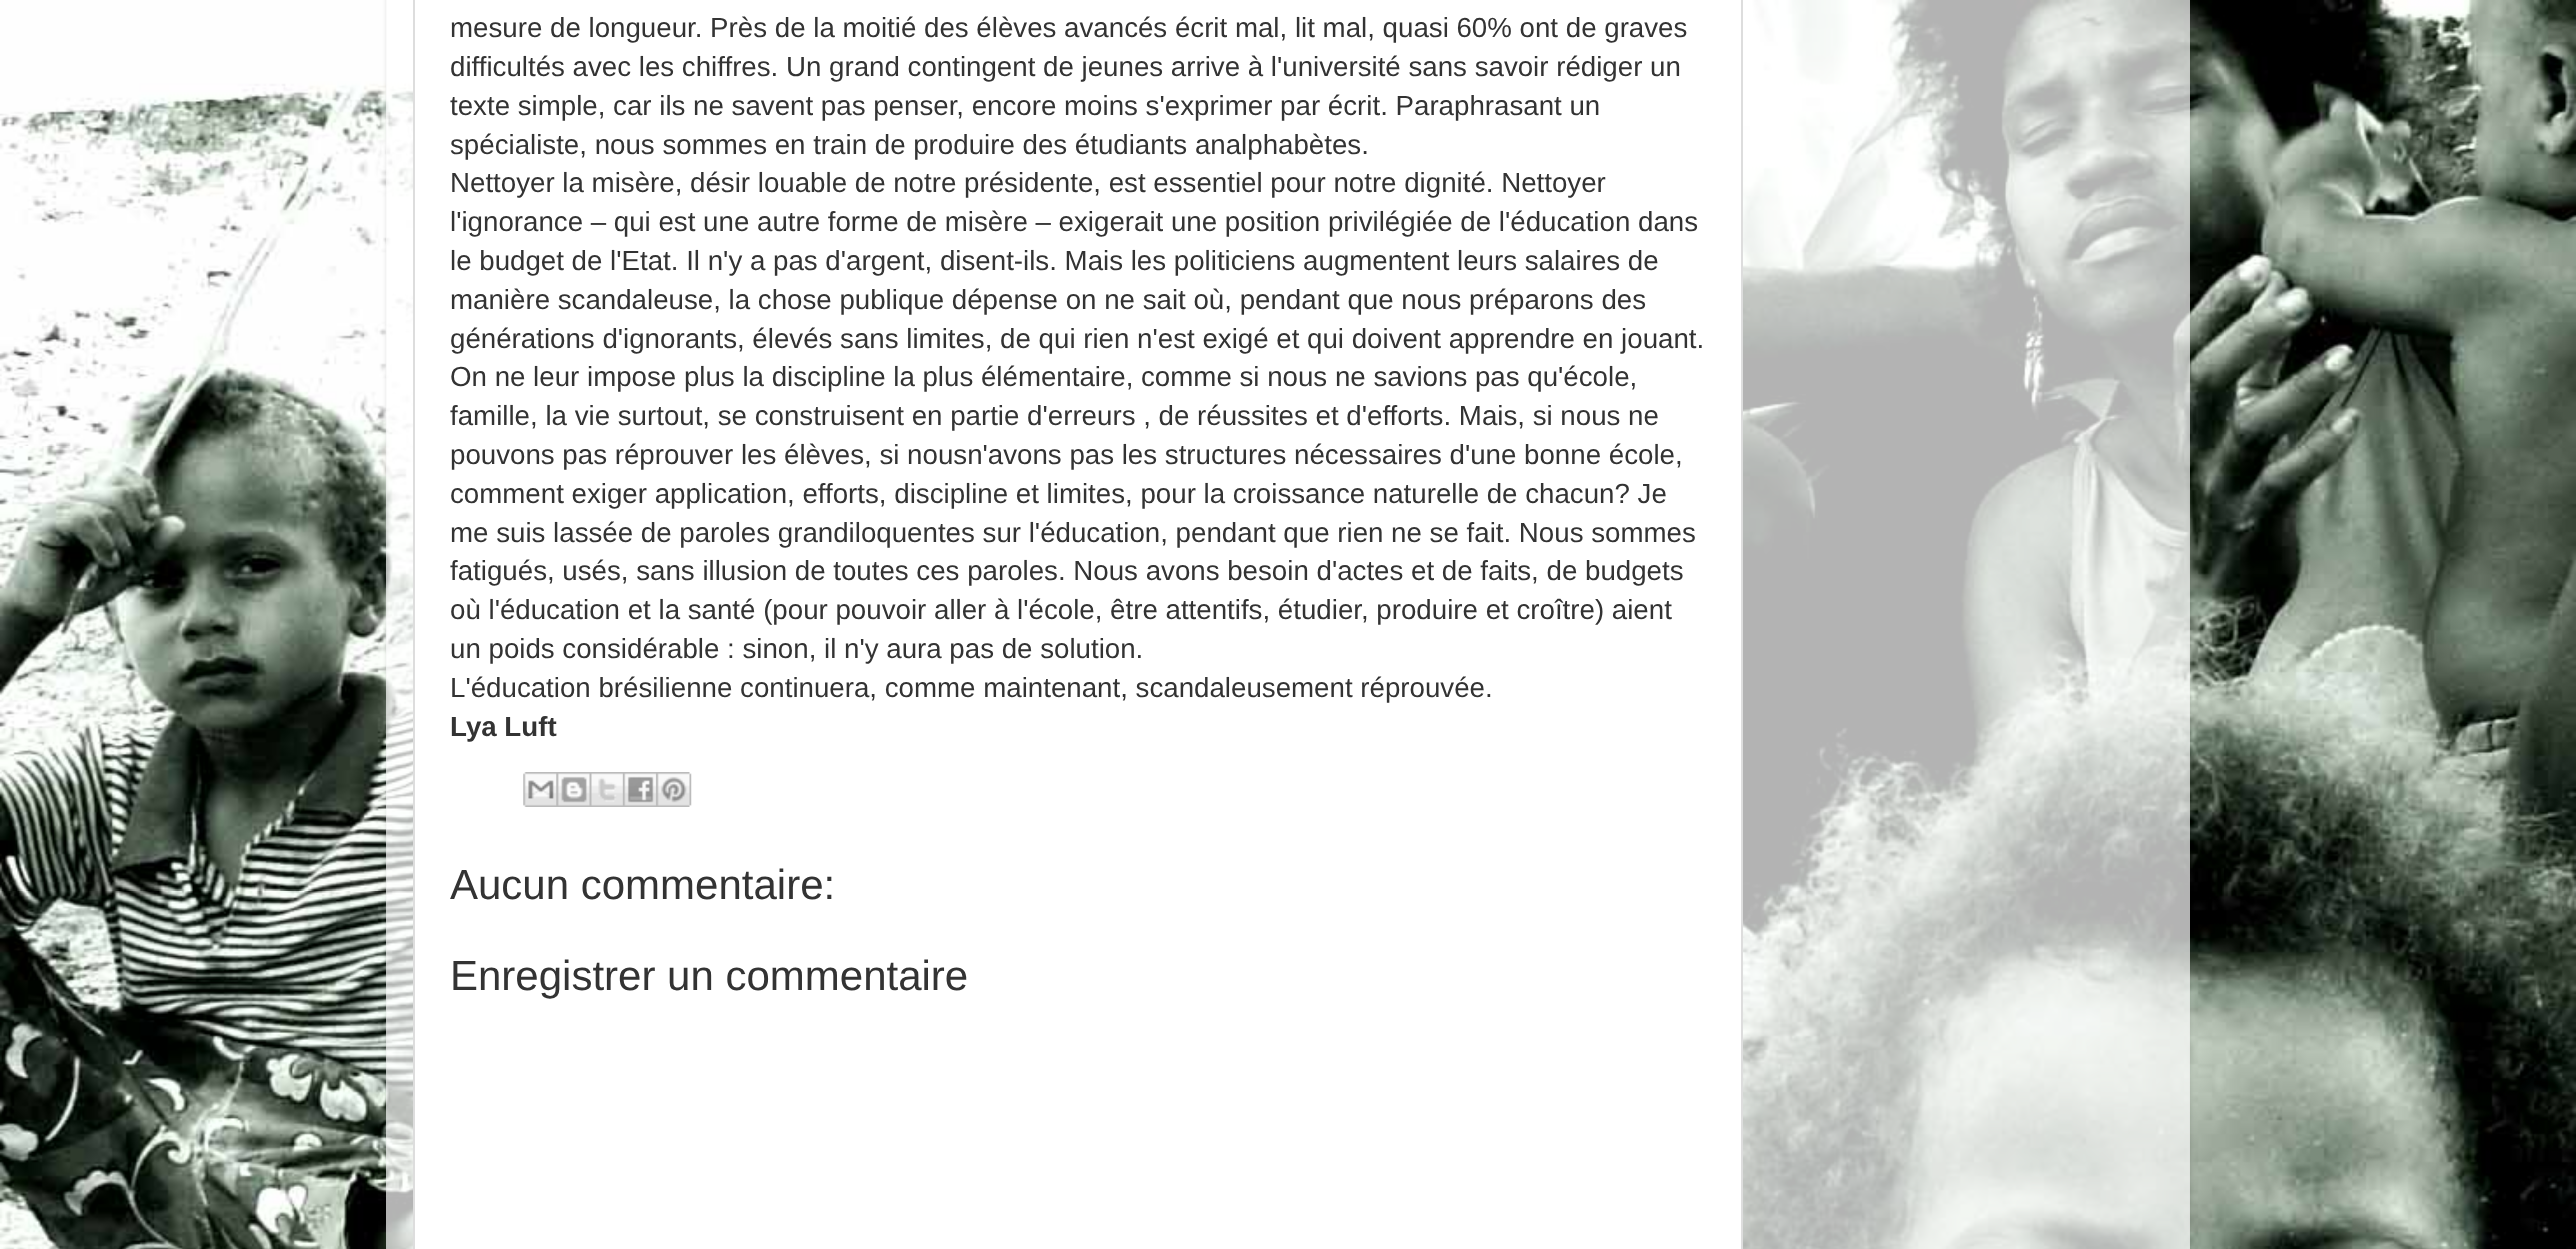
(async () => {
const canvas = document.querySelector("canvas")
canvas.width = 2576
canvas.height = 1249
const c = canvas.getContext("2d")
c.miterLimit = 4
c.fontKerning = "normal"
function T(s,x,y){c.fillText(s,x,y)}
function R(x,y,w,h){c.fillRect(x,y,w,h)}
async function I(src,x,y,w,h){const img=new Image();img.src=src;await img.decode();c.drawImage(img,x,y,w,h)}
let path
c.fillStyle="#fff"
R(0,0,2576,1249)
await I("1.png",0,0,2576,1249)
c.save()
path = new Path2D("M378 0h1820v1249h-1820zm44-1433h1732c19.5 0 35 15.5 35 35v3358h-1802v-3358c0-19.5 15.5-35 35-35z")
c.clip(path,"evenodd")
c.fillStyle="#00000026"
c.filter="blur(2.5px)"
c.beginPath()
c.roundRect(387,-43,1802,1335,35)
c.fill()
c.filter="none"
c.restore()
c.fillStyle="#ffffffb3"
R(386,0,1804,1249)
c.fillStyle="#fff"
c.beginPath()
c.rect(414,-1,1328,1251)
c.fill()
c.strokeStyle="#ddd"
c.lineWidth=2
c.stroke()
c.font="27.7px Liberation Sans"
c.fillStyle="#333"
T("mesure de longueur. Près de la moitié des élèves avancés écrit mal, lit mal, quasi 60% ont de graves",450,37)
T("difficultés avec les chiffres. Un grand contingent de jeunes arrive à l'université sans savoir rédiger un",450,76)
T("texte simple, car ils ne savent pas penser, encore moins s'exprimer par écrit. Paraphrasant un",450,115)
T("spécialiste, nous sommes en train de produire des étudiants analphabètes.",450,154)
T("Nettoyer la misère, désir louable de notre présidente, est essentiel pour notre dignité. Nettoyer",450,192)
T("l'ignorance – qui est une autre forme de misère – exigerait une position privilégiée de l'éducation dans",450,231)
T("le budget de l'Etat. Il n'y a pas d'argent, disent-ils. Mais les politiciens augmentent leurs salaires de",450,270)
T("manière scandaleuse, la chose publique dépense on ne sait où, pendant que nous préparons des",450,309)
T("générations d'ignorants, élevés sans limites, de qui rien n'est exigé et qui doivent apprendre en jouant.",450,348)
T("On ne leur impose plus la discipline la plus élémentaire, comme si nous ne savions pas qu'école,",450,386)
T("famille, la vie surtout, se construisent en partie d'erreurs , de réussites et d'efforts. Mais, si nous ne",450,425)
T("pouvons pas réprouver les élèves, si nousn'avons pas les structures nécessaires d'une bonne école,",450,464)
T("comment exiger application, efforts, discipline et limites, pour la croissance naturelle de chacun? Je",450,503)
T("me suis lassée de paroles grandiloquentes sur l'éducation, pendant que rien ne se fait. Nous sommes",450,542)
T("fatigués, usés, sans illusion de toutes ces paroles. Nous avons besoin d'actes et de faits, de budgets",450,580)
T("où l'éducation et la santé (pour pouvoir aller à l'école, être attentifs, étudier, produire et croître) aient",450,619)
T("un poids considérable : sinon, il n'y aura pas de solution.",450,658)
T("L'éducation brésilienne continuera, comme maintenant, scandaleusement réprouvée.",450,697)
c.font="bold 27.7px Liberation Sans"
T("Lya Luft",450,736)
await I("2.png",523,772,34,35)
await I("3.png",556,772,34,35)
await I("4.png",589,772,34,35)
await I("5.png",623,772,34,35)
await I("6.png",656,772,36,35)
c.font="42px Liberation Sans"
T("Aucun commentaire:",450,899)
T("Enregistrer un commentaire",450,990)
})()
